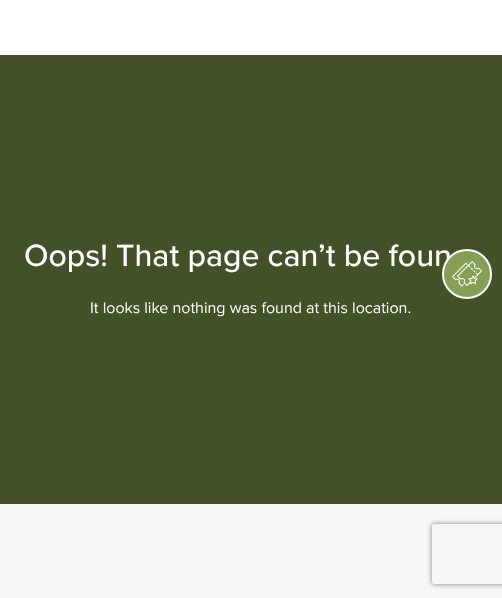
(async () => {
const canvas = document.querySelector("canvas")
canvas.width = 502
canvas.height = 598
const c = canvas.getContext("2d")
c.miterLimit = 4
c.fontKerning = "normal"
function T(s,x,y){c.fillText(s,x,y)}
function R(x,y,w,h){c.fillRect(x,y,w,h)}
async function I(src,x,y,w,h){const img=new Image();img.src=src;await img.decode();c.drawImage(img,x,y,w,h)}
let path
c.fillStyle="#fff"
R(0,0,502,598)
c.fillStyle="#435129"
R(0,55,502,449)
c.font="500 32px Proxima Nova"
c.fillStyle="#fff"
T("Oops! That page can’t be foun",24,266)
c.font="16px Proxima Nova"
T("It looks like nothing was found at this location.",90,313)
c.fillStyle="#f6f6f6"
R(0,504,502,94)
c.fillStyle="#869f56"
c.beginPath()
c.arc(467,274,24,0,7)
c.fill()
c.strokeStyle="#fff"
c.lineWidth=2
c.stroke()
await I("1.png",452,261,30,26)
c.save()
path = new Path2D("M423 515h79v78h-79zm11 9h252c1 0 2 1 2 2v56c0 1-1 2-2 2h-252c-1 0-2-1-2-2v-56c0-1 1-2 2-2z")
c.clip(path,"evenodd")
c.fillStyle="#808080"
c.filter="blur(2.5px)"
c.beginPath()
c.roundRect(432,524,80,60,2)
c.fill()
c.filter="none"
c.restore()
})()
